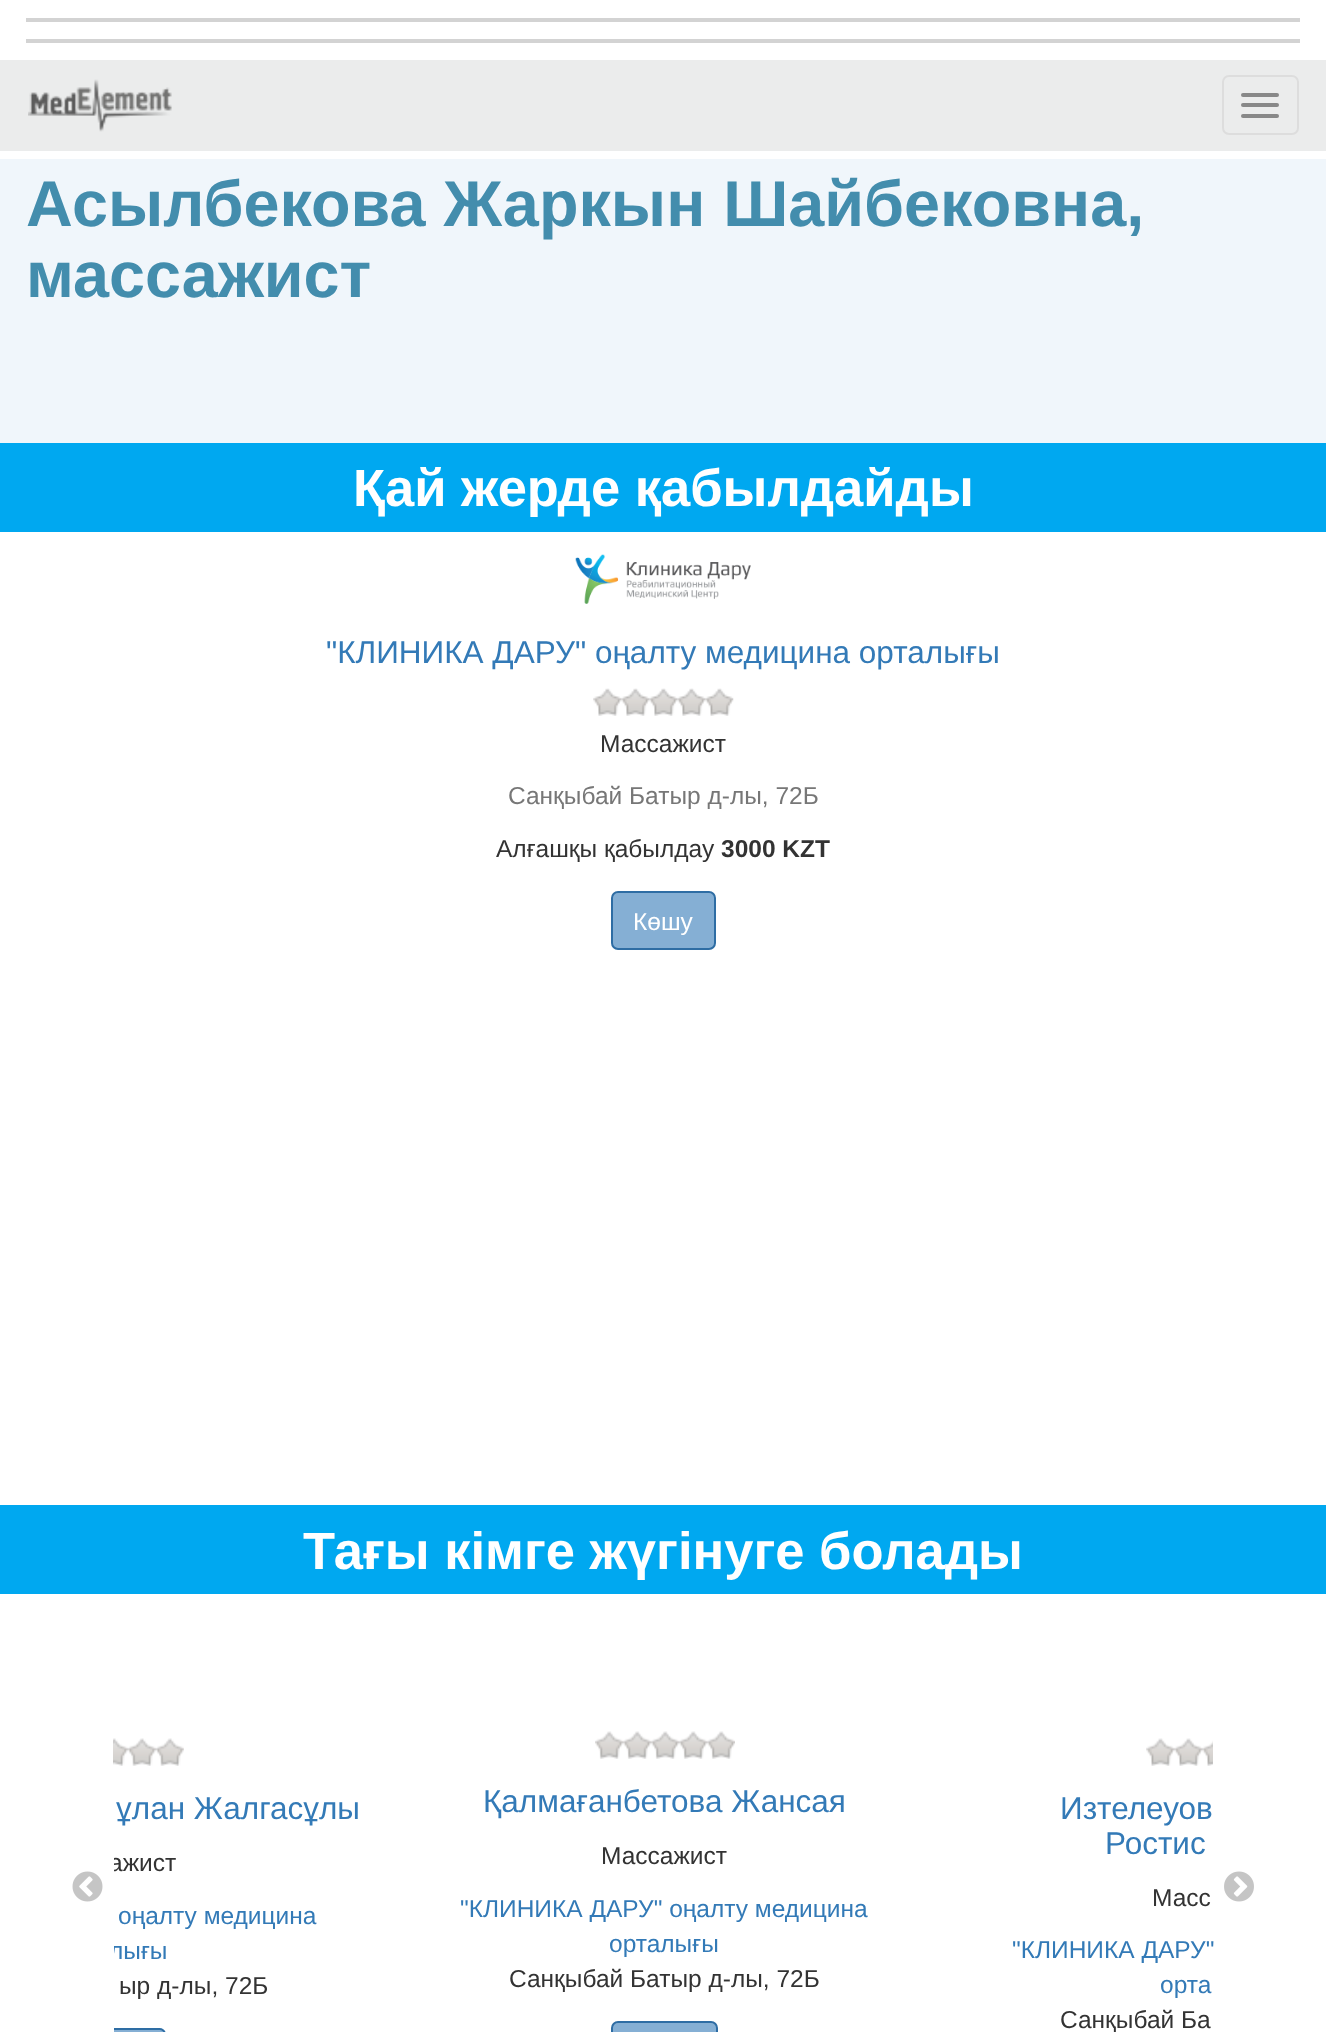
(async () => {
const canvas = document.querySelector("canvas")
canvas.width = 1326
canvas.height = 2032
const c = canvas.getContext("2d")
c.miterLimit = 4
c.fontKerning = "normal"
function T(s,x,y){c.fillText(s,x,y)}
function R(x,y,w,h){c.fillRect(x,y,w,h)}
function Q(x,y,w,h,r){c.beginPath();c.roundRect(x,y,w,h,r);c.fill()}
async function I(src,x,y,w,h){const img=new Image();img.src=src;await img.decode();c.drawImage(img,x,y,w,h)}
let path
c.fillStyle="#fff"
R(0,0,1326,2032)
c.fillStyle="#d3d3d3"
R(26,18,1274,4)
R(26,39,1274,4)
c.fillStyle="#ebecec"
R(0,60,1326,91)
await I("1.png",28,79,144,53)
c.beginPath()
c.roundRect(1223,76,75,58,6)
c.strokeStyle="#ddd"
c.lineWidth=2
c.stroke()
c.fillStyle="#888"
Q(1241,93,38,4,2)
Q(1241,103,38,4,2)
Q(1241,114,38,4,2)
c.fillStyle="#f0f6fb"
R(0,159,1326,284)
c.font="bold 64.75px Liberation Sans"
c.fillStyle="#438dad"
T("Асылбекова Жаркын Шайбековна,",26,226)
T("массажист",26,297)
c.fillStyle="#00a8f0"
R(0,443,1326,89)
c.font="bold 52.5px Liberation Sans"
c.fillStyle="#fff"
T("Қай жерде қабылдайды",353,506)
await I("2.png",575,554,176,50)
c.font="31.5px Liberation Sans"
c.fillStyle="#337ab7"
T("\"КЛИНИКА ДАРУ\" оңалту медицина орталығы",326,663)
await I("4.png",705,688,29,28)
await I("3.png",677,688,29,28)
await I("3.png",649,688,29,28)
await I("3.png",621,688,29,28)
await I("3.png",593,688,29,28)
c.font="24.5px Liberation Sans"
c.fillStyle="#333"
T("Массажист",600,752)
c.fillStyle="#777"
T("Санқыбай Батыр д-лы, 72Б",508,804)
c.fillStyle="#333"
T("Алғашқы қабылдау",496,857)
c.font="bold 24.5px Liberation Sans"
T("3000 KZT",721,857)
c.fillStyle="#85afd4"
c.beginPath()
c.roundRect(612,892,103,57,6)
c.fill()
c.strokeStyle="#2e6da4"
c.stroke()
c.font="24.5px Liberation Sans"
c.fillStyle="#fff"
T("Көшу",633,930)
c.fillStyle="#00a8f0"
R(0,1505,1326,89)
c.font="bold 52.5px Liberation Sans"
c.fillStyle="#fff"
T("Тағы кімге жүгінуге болады",303,1569)
await I("5.png",72,1871,31,31)
await I("6.png",113,1738,71,28)
c.font="31.5px Liberation Sans"
c.fillStyle="#337ab7"
T("ұлан Жалгасұлы",116,1819)
c.save()
c.beginPath()
c.rect(114,1610,1099,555)
c.clip()
c.font="24.5px Liberation Sans"
c.fillStyle="#333"
T("ажист",109,1871)
c.restore()
c.font="24.5px Liberation Sans"
T("оңалту медицина",118,1924)
c.save()
c.beginPath()
c.rect(114,1610,1099,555)
c.clip()
T("лығы",109,1959)
c.restore()
c.fillStyle="#333"
T("ыр д-лы, 72Б",119,1994)
c.fillStyle="#85afd4"
path = new Path2D("M114 2028h45c4 0 7 3 7 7v-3c0 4-3 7-7 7h-45z")
c.fill(path)
c.save()
c.beginPath()
c.rect(114,1610,1099,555)
c.clip()
c.beginPath()
c.roundRect(61,2029,104,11,6)
c.stroke()
c.restore()
await I("7.png",595,1731,140,28)
c.font="31.5px Liberation Sans"
c.fillStyle="#337ab7"
T("Қалмағанбетова Жансая",483,1812)
c.font="24.5px Liberation Sans"
c.fillStyle="#333"
T("Массажист",601,1864)
c.fillStyle="#337ab7"
T("\"КЛИНИКА ДАРУ\" оңалту медицина",460,1917)
T("орталығы",609,1952)
c.fillStyle="#333"
T("Санқыбай Батыр д-лы, 72Б",509,1987)
c.fillStyle="#85afd4"
c.beginPath()
c.roundRect(612,2022,105,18,6)
c.fill()
c.stroke()
await I("8.png",1146,1738,67,28)
c.font="31.5px Liberation Sans"
c.fillStyle="#337ab7"
T("Изтелеуов",1060,1819)
T("Ростис",1105,1854)
c.font="24.5px Liberation Sans"
c.fillStyle="#333"
T("Масс",1152,1906)
c.fillStyle="#337ab7"
T("\"КЛИНИКА ДАРУ\"",1012,1958)
T("орта",1160,1993)
c.fillStyle="#333"
T("Санқыбай Ба",1060,2028)
await I("9.png",1224,1871,30,31)
})()
